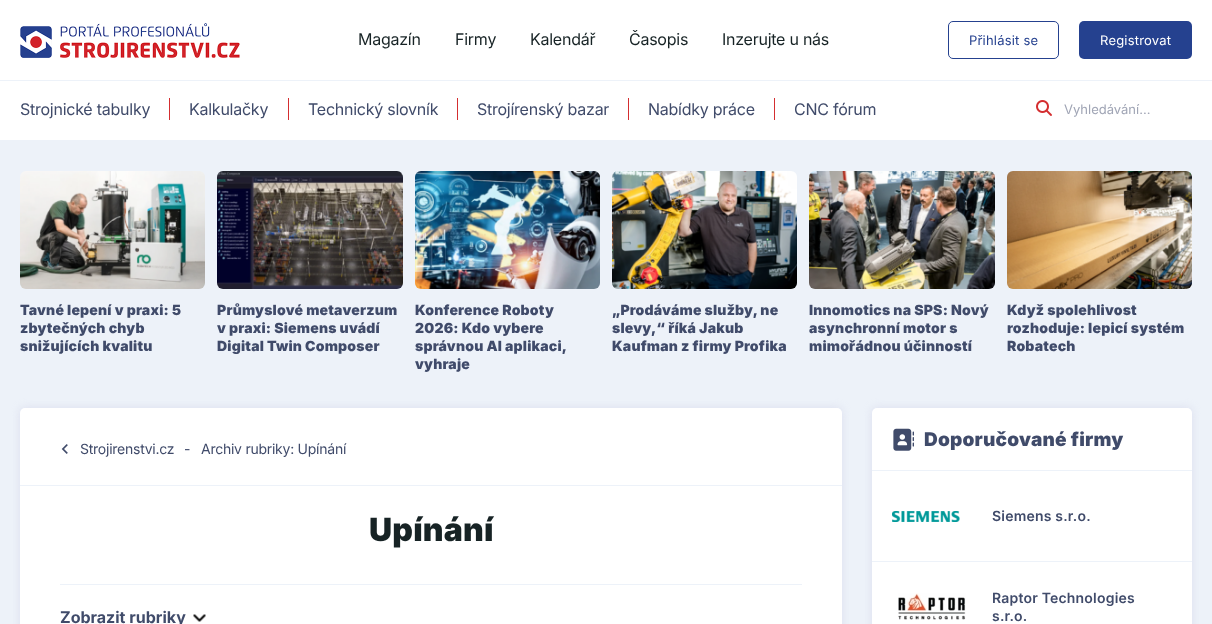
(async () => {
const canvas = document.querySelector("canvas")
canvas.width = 1212
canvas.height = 624
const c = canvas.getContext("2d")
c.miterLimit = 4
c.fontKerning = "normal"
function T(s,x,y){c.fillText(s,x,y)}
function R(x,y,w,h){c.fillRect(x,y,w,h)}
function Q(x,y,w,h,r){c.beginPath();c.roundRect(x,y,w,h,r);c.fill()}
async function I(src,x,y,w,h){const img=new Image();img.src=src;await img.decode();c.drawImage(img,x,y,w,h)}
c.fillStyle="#fff"
R(0,0,1212,624)
c.fillStyle="#edf2f9"
R(0,80,1212,1)
await I("1.png",20,23,220,35)
c.letterSpacing="-0.25px"
c.font="16px Inter"
c.fillStyle="#172325"
T("Magazín",358,45)
T("Firmy",455,45)
T("Kalendář",530,45)
T("Časopis",629,45)
T("Inzerujte u nás",722,45)
c.beginPath()
c.roundRect(948.5,21.5,110,37,4.5)
c.strokeStyle="#25418f"
c.stroke()
c.letterSpacing="0.2px"
c.font="13px Inter"
c.fillStyle="#25418f"
T("Přihlásit se",969,45)
Q(1079,21,113,38,5)
c.fillStyle="#fff"
T("Registrovat",1100,45)
c.letterSpacing="-0.25px"
c.font="16px Inter"
c.fillStyle="#404b6a"
T("Strojnické tabulky",20,115)
c.fillStyle="#d42e30"
R(169,98,1,22)
c.fillStyle="#404b6a"
T("Kalkulačky",189,115)
c.fillStyle="#d42e30"
R(288,98,1,22)
c.fillStyle="#404b6a"
T("Technický slovník",308,115)
c.fillStyle="#d42e30"
R(457,98,1,22)
c.fillStyle="#404b6a"
T("Strojírenský bazar",477,115)
c.fillStyle="#d42e30"
R(628,98,1,22)
c.fillStyle="#404b6a"
T("Nabídky práce",648,115)
c.fillStyle="#d42e30"
R(774,98,1,22)
c.fillStyle="#404b6a"
T("CNC fórum",794,115)
await I("2.png",1036,100,16,16)
c.letterSpacing="0px"
c.font="13px Inter"
c.fillStyle="#a0a5b5"
T("Vyhledávání...",1064,114)
c.fillStyle="#edf2f9"
R(0,140,1212,484)
await I("3.png",20,171,185,118)
c.letterSpacing="0.2px"
c.font="900 14px Inter"
c.fillStyle="#404b6a"
T("Tavné lepení v praxi: 5",20,315)
T("zbytečných chyb",20,333)
T("snižujících kvalitu",20,351)
await I("4.png",217,171,186,118)
T("Průmyslové metaverzum",217,315)
T("v praxi: Siemens uvádí",217,333)
T("Digital Twin Composer",217,351)
await I("5.png",415,171,185,118)
T("Konference Roboty",415,315)
T("2026: Kdo vybere",415,333)
T("správnou AI aplikaci,",415,351)
T("vyhraje",415,369)
await I("6.png",612,171,185,118)
T("„Prodáváme služby, ne",612,315)
T("slevy,“ říká Jakub",612,333)
T("Kaufman z firmy Profika",612,351)
await I("7.png",809,171,186,118)
T("Innomotics na SPS: Nový",809,315)
T("asynchronní motor s",809,333)
T("mimořádnou účinností",809,351)
await I("8.png",1007,171,185,118)
T("Když spolehlivost",1007,315)
T("rozhoduje: lepicí systém",1007,333)
T("Robatech",1007,351)
c.fillStyle="#c9c9e480"
c.filter="blur(4px)"
c.beginPath()
c.roundRect(20,408,822,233,5)
c.fill()
c.filter="none"
c.fillStyle="#fff"
Q(20,408,822,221,5)
c.fillStyle="#edf2f9"
R(20,485,822,1)
await I("9.png",61,444,7,10)
c.letterSpacing="-0.25px"
c.font="14px Inter"
c.fillStyle="#404b6a"
T("Strojirenstvi.cz",80,454)
T("-",184,454)
T("Archiv rubriky: Upínání",201,454)
c.letterSpacing="0.2px"
c.font="900 32px Inter"
c.fillStyle="#172325"
T("Upínání",369,541)
c.fillStyle="#edf2f9"
R(60,584,742,1)
c.letterSpacing="0px"
c.font="bold 16px Inter"
c.fillStyle="#404b6a"
T("Zobrazit rubriky",60,623)
await I("10.png",193,614,13,8)
c.fillStyle="#c9c9e480"
c.filter="blur(4px)"
c.beginPath()
c.roundRect(872,408,320,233,5)
c.fill()
c.filter="none"
c.fillStyle="#fff"
Q(872,408,320,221,5)
c.fillStyle="#edf2f9"
R(872,470,320,1)
await I("11.png",893,428,21,23)
c.letterSpacing="0.2px"
c.font="900 19px Inter"
c.fillStyle="#404b6a"
T("Doporučované firmy",924,446)
c.fillStyle="#edf2f9"
R(872,561,320,1)
await I("12.png",892,511,68,11)
c.font="600 14px Inter"
c.fillStyle="#404b6a"
T("Siemens s.r.o.",992,521)
await I("13.png",898,593,68,27)
T("Raptor Technologies",992,603)
T("s.r.o.",992,621)
})()
